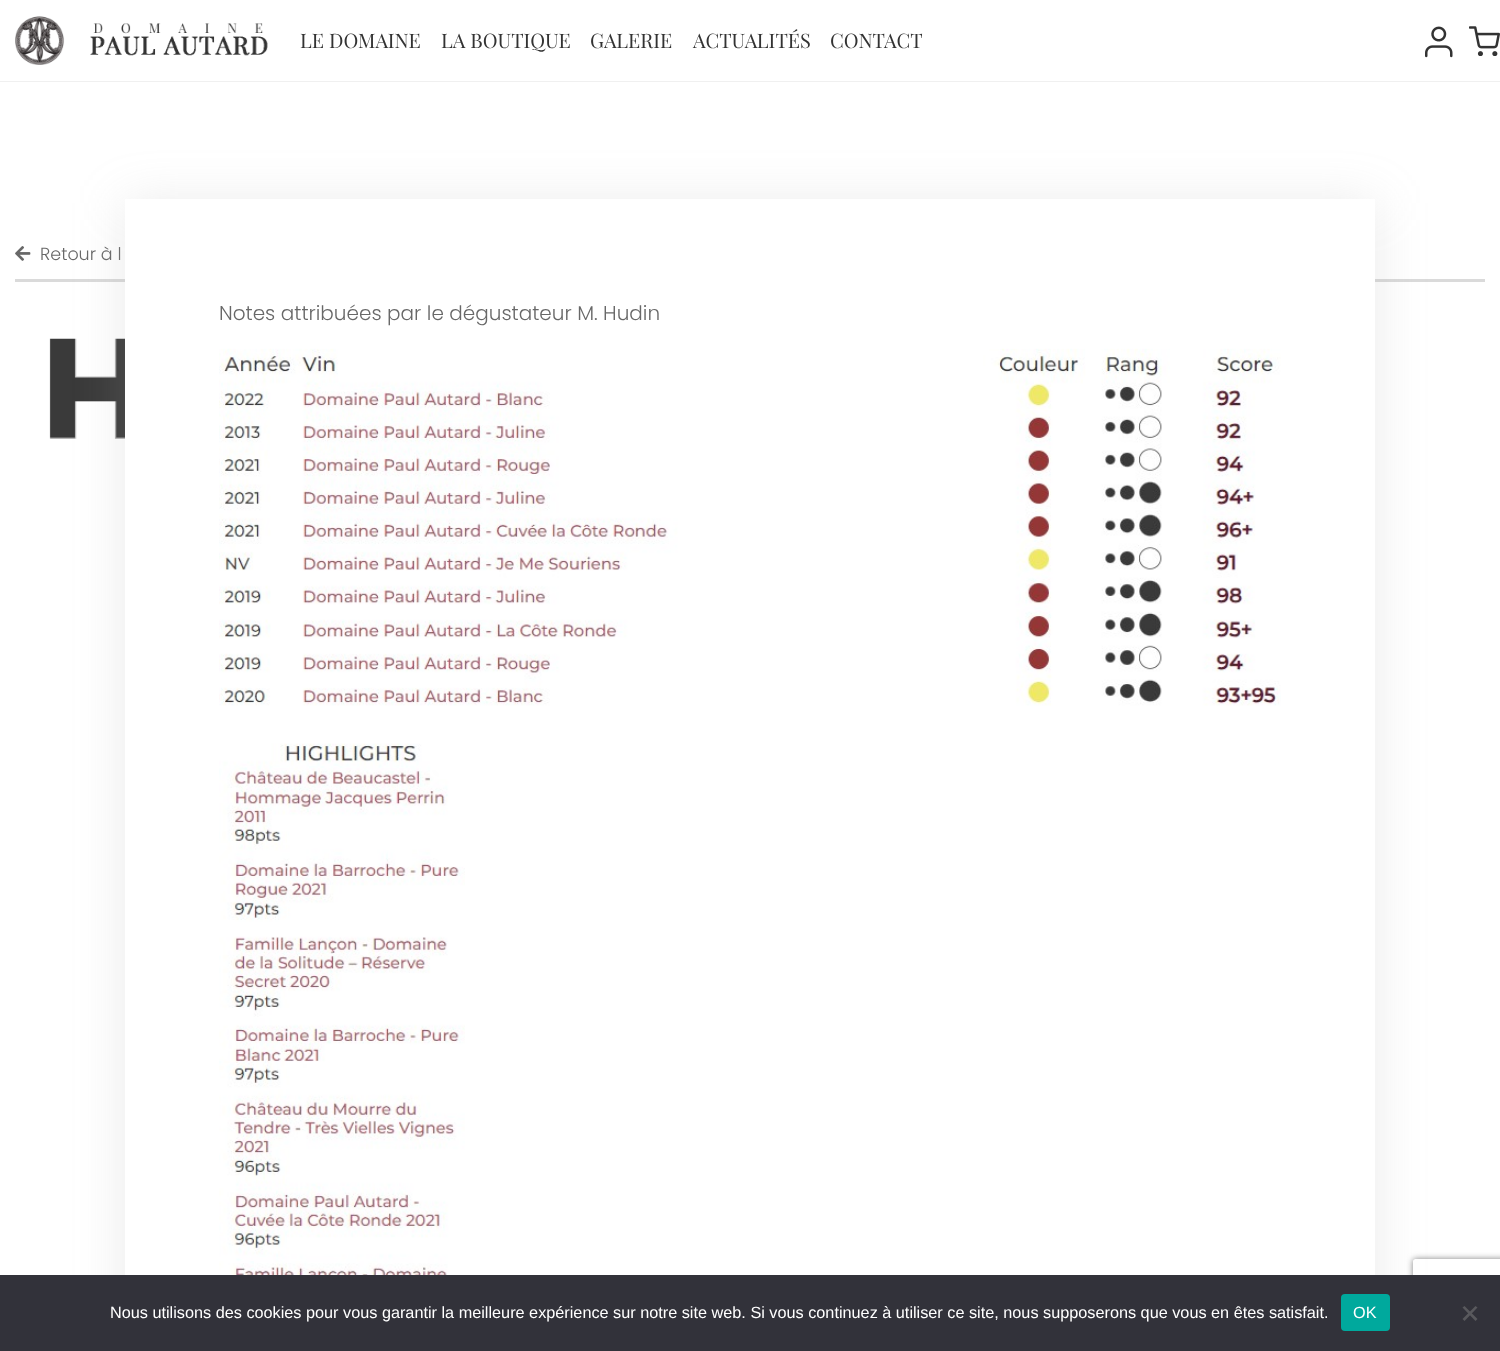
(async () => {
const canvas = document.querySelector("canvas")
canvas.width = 1500
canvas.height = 1351
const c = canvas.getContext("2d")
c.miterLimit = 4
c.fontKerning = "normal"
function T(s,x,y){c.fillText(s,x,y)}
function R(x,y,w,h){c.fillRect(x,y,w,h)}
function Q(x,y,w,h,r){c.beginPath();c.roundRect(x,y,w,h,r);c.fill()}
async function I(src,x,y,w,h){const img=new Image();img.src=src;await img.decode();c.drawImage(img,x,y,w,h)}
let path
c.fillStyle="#fff"
R(0,0,1500,1351)
c.fillStyle="#f0f0f0"
R(0,81,1500,1)
await I("1.png",15,16,253,49)
c.font="20px Playfair Display"
c.fillStyle="#333"
T("LE DOMAINE",300,48)
T("LA BOUTIQUE",441,48)
T("GALERIE",590,48)
T("ACTUALITÉS",693,48)
T("CONTACT",830,48)
await I("2.png",1425,26,28,32)
await I("3.png",1469,26,31,30)
await I("4.png",15,246,16,15)
c.font="300 17.5px Poppins"
c.fillStyle="#686868"
T("Retour à l",40,260)
c.fillStyle="#dadada"
R(15,279,1470,3)
await I("7.png",49,338,76,103)
c.fillStyle="#a6a6a63b"
c.filter="blur(25px)"
c.beginPath()
c.rect(125,203,1250,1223)
c.fill()
c.filter="none"
c.fillStyle="#fff"
R(125,199,1250,1076)
c.font="300 20px Poppins"
c.fillStyle="#686868"
T("Notes attribuées par le dégustateur M. Hudin",219,320)
await I("5.png",219,348,1062,358)
await I("6.png",219,743,246,532)
c.save()
path = new Path2D("M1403 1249h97v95h-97zm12.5 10h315c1.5 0 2.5 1 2.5 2.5v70c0 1.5-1 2.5-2.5 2.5h-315c-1.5 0-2.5-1-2.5-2.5v-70c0-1.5 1-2.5 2.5-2.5z")
c.clip(path,"evenodd")
c.fillStyle="#808080"
c.filter="blur(3px)"
c.beginPath()
c.roundRect(1413,1259,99,75,2.5)
c.fill()
c.filter="none"
c.restore()
c.fillStyle="#32323a"
R(0,1275,1500,76)
c.font="16.25px Liberation Sans"
c.fillStyle="#fff"
T("Nous utilisons des cookies pour vous garantir la meilleure expérience sur notre site web. Si vous continuez à utiliser ce site, nous supposerons que vous en êtes satisfait.",110,1318)
c.fillStyle="#00a99d"
Q(1341,1294,49,37,4)
c.fillStyle="#fff"
T("OK",1353,1318)
c.fillStyle="#59595d"
path = new Path2D("M1475.5 1306l2 1.5l-13 13.5l-2-2z")
c.fill(path)
path = new Path2D("M1462.5 1307.5l2-1.5l13 13l-2 2z")
c.fill(path)
})()
